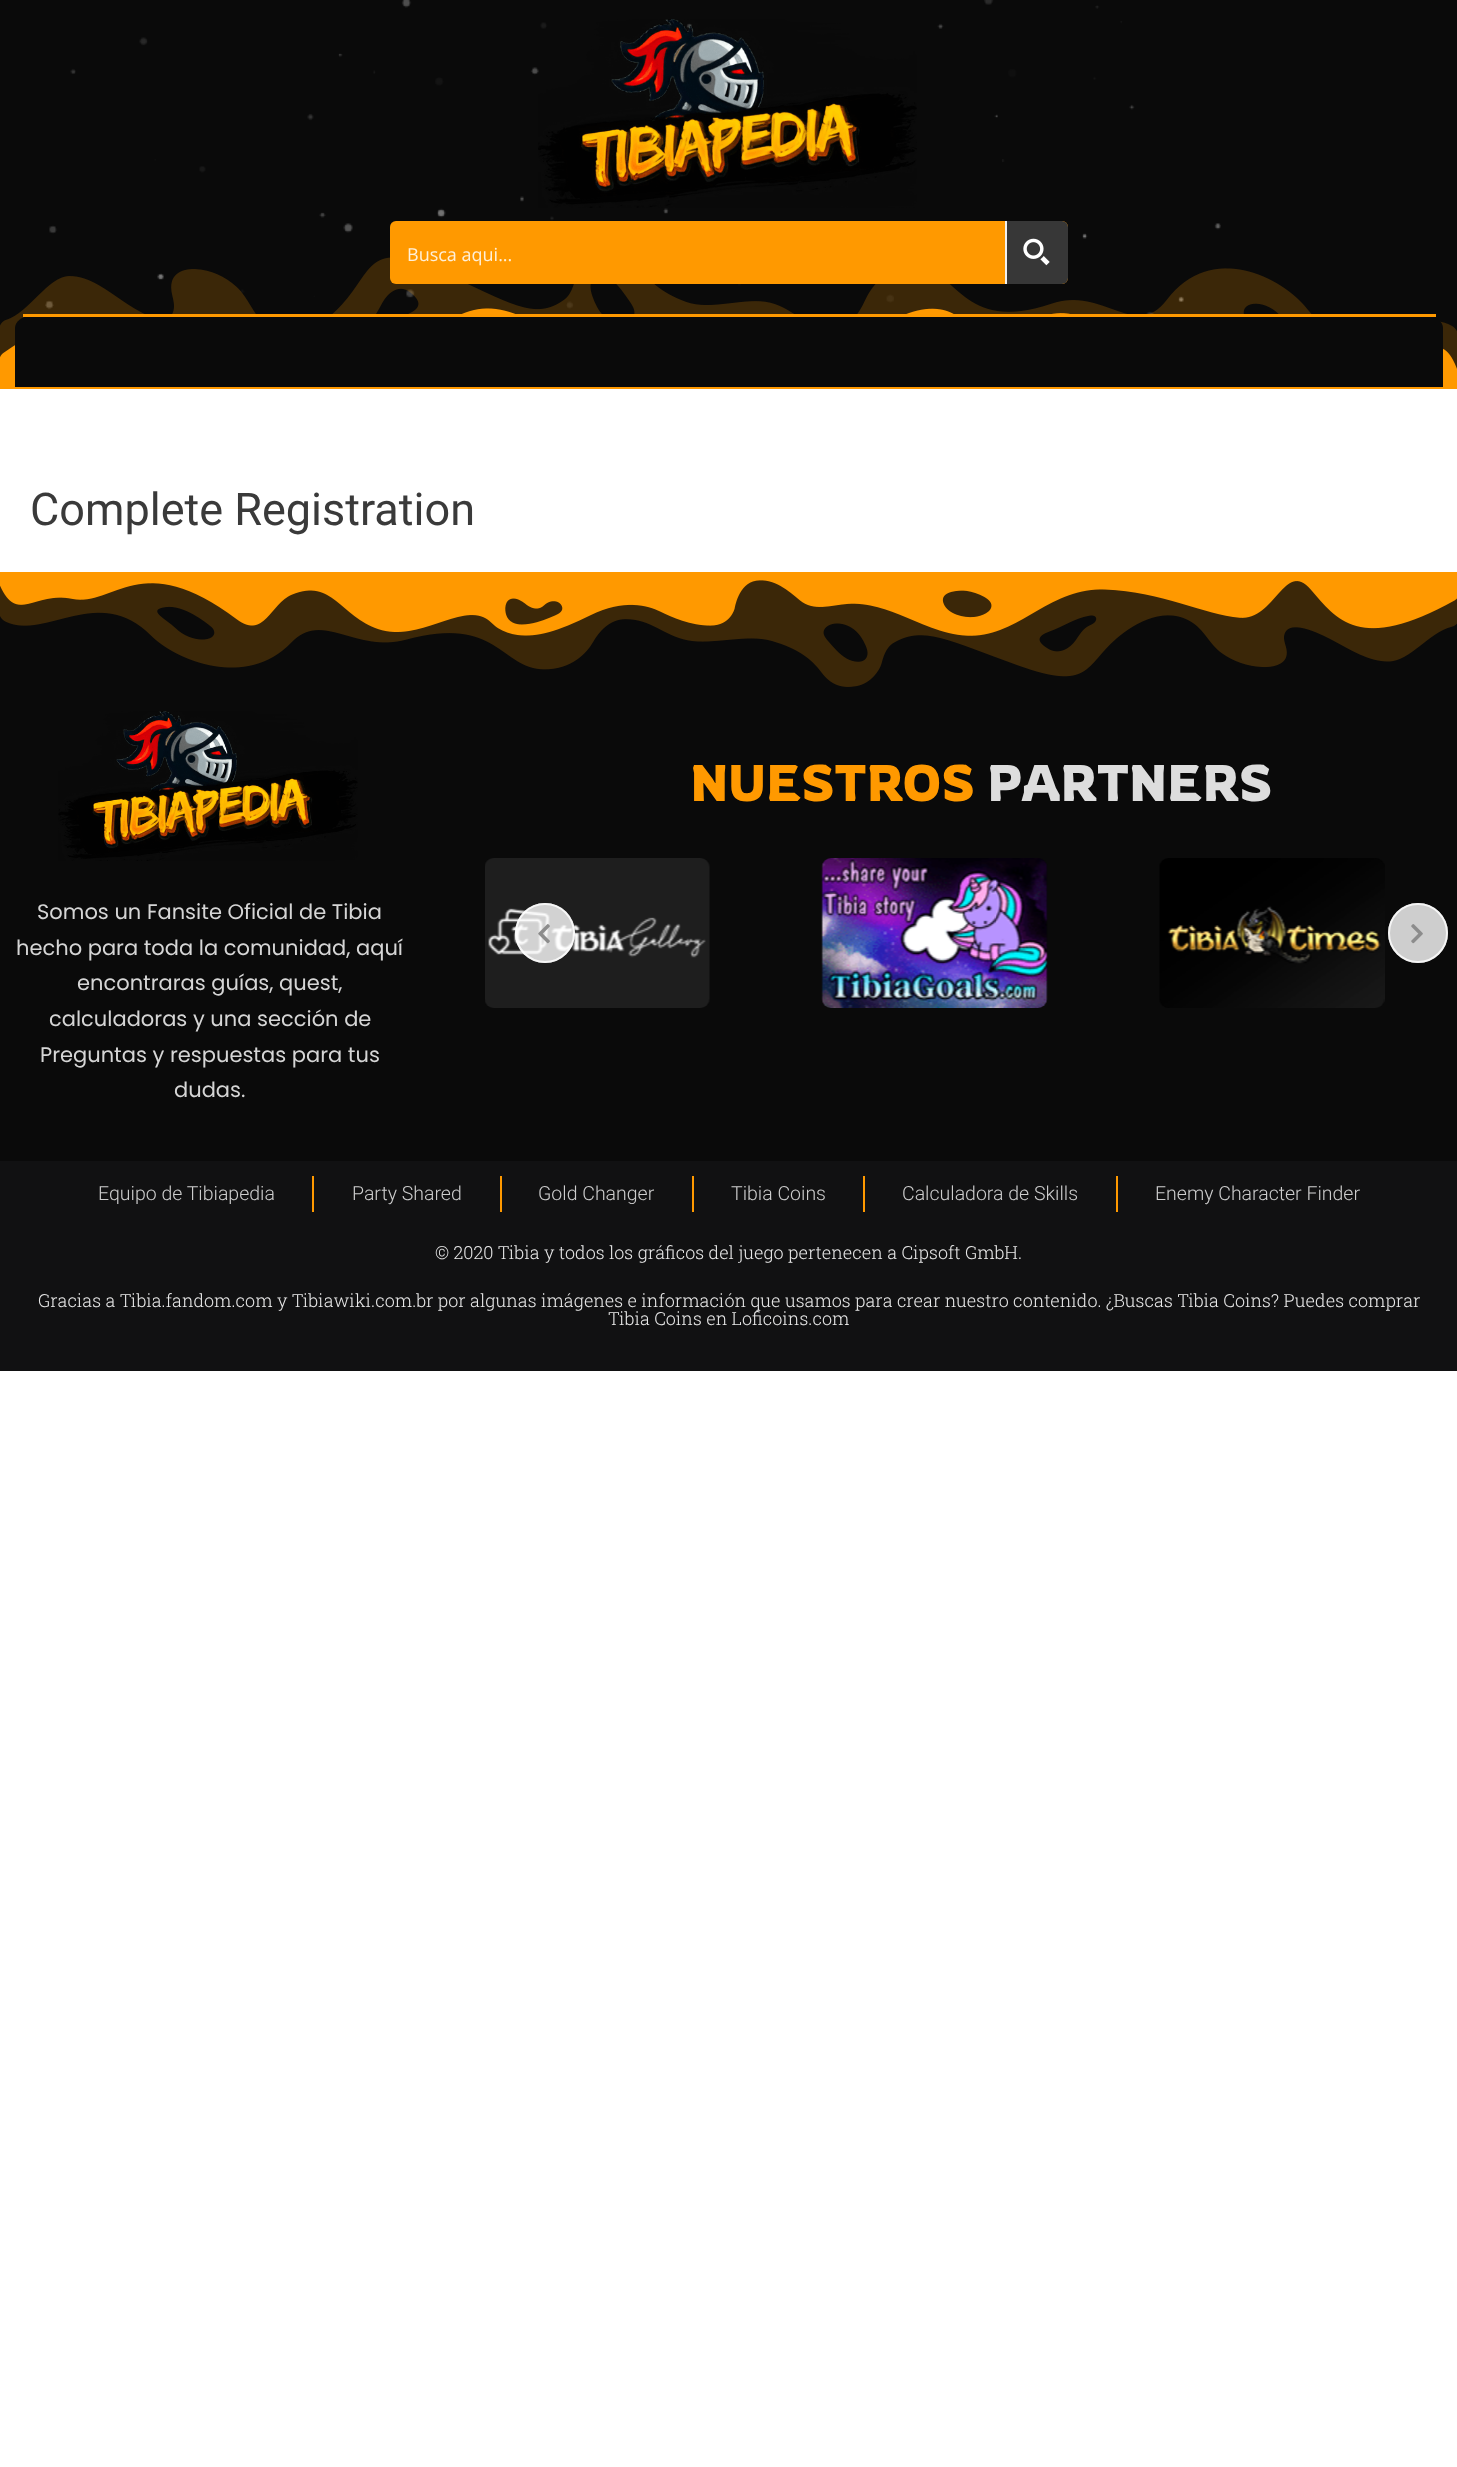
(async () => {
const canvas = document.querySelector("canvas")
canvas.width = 1457
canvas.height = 2467
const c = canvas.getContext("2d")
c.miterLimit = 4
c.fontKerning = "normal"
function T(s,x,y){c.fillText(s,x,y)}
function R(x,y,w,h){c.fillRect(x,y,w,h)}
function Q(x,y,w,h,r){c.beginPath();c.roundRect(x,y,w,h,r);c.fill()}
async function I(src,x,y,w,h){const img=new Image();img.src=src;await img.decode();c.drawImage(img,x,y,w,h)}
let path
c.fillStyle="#fff"
R(0,0,1457,2467)
c.fillStyle="#0a0a0a"
R(0,0,1457,369)
await I("1.png",45,0,1176,314)
await I("2.png",538,19,379,189)
await I("4.png",0,257,1457,132)
c.fillStyle="#f90"
Q(390,221,678,63,6)
c.font="18px Open Sans"
c.fillStyle="#fff0d9"
T("Busca aqui...",407,261)
c.fillStyle="#373737"
c.beginPath()
c.roundRect(1005,221,63,63,[0,6,6,0])
c.fill()
c.fillStyle="#f1f1f1"
R(1005,221,2,63)
await I("3.png",1023,238,27,28)
c.fillStyle="#0a0a0a"
path = new Path2D("M30 316h1398c8 0 15 6 15 12v59h-1428v-59c0-6 7-12 15-12z")
c.fill(path)
c.fillStyle="#f90"
R(23,314,1413,3)
c.font="45px Roboto"
c.fillStyle="#3a3a3a"
T("Complete Registration",30,525)
c.fillStyle="#0a0a0a"
R(0,580,1457,581)
await I("5.png",0,572,1457,115)
c.font="51px Rowdies"
c.fillStyle="#f90"
T("NUESTROS",690,801)
c.fillStyle="#ddd"
T("PARTNERS",987,801)
await I("6.png",485,858,225,150)
await I("7.png",821,858,227,150)
await I("8.png",1159,858,226,150)
c.fillStyle="#ffffffcc"
c.beginPath()
c.arc(545,933,30,0,7)
c.fill()
c.beginPath()
c.arc(545,933,29,0,7)
c.strokeStyle="#ffffffcc"
c.lineWidth=2
c.stroke()
await I("9.png",538,924,12,20)
c.fillStyle="#cecece"
c.beginPath()
c.arc(1418,933,30,0,7)
c.fill()
c.beginPath()
c.arc(1418,933,29,0,7)
c.stroke()
await I("10.png",1411,924,12,20)
await I("11.png",58,711,300,150)
c.font="21px Poppins"
c.fillStyle="#d5d5d5"
T("Somos un Fansite Oficial de Tibia",37,919)
T("hecho para toda la comunidad, aquí",16,955)
T("encontraras guías, quest,",77,990)
T("calculadoras y una sección de",49,1026)
T("Preguntas y respuestas para tus",40,1062)
T("dudas.",174,1097)
c.fillStyle="#111112"
R(0,1161,1457,210)
c.font="300 19.5px Roboto"
c.fillStyle="#cdcdcd"
T("Equipo de Tibiapedia",98,1200)
c.fillStyle="#f90"
R(312,1176,2,36)
c.fillStyle="#cdcdcd"
T("Party Shared",352,1200)
c.fillStyle="#f90"
R(500,1176,2,36)
c.fillStyle="#cdcdcd"
T("Gold Changer",538,1200)
c.fillStyle="#f90"
R(692,1176,2,36)
c.fillStyle="#cdcdcd"
T("Tibia Coins",731,1200)
c.fillStyle="#f90"
R(863,1176,2,36)
c.fillStyle="#cdcdcd"
T("Calculadora de Skills",902,1200)
c.fillStyle="#f90"
R(1116,1176,2,36)
c.fillStyle="#cdcdcd"
T("Enemy Character Finder",1155,1200)
c.font="300 18px Roboto Slab"
c.fillStyle="#e9e9e9"
T("© 2020 Tibia y todos los gráficos del juego pertenecen a Cipsoft GmbH.",435,1259)
T("Gracias a Tibia.fandom.com y Tibiawiki.com.br por algunas imágenes e información que usamos para crear nuestro contenido. ¿Buscas Tibia Coins? Puedes comprar",38,1307)
T("Tibia Coins en Loficoins.com",608,1325)
})()
